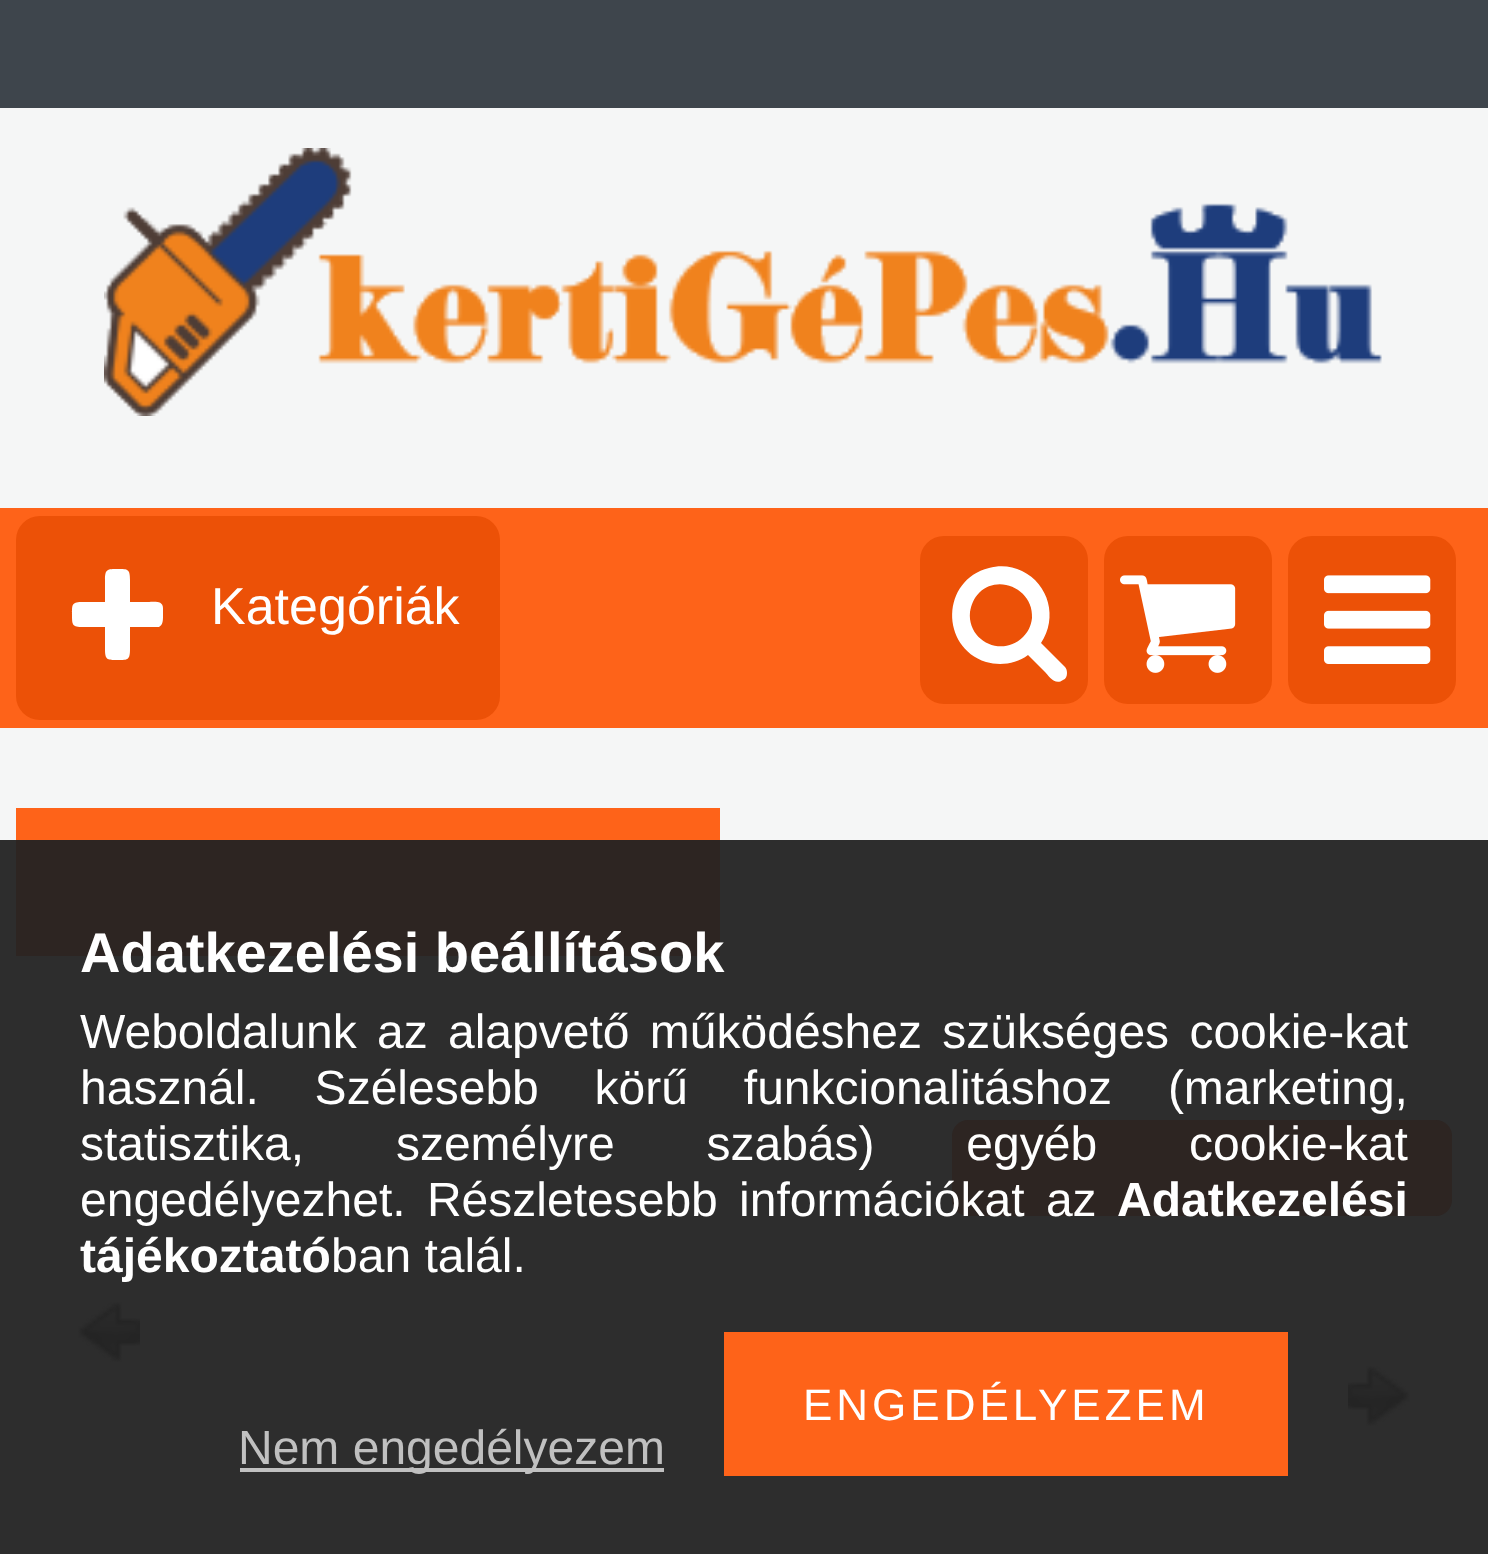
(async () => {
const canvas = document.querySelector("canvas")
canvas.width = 1488
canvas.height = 1554
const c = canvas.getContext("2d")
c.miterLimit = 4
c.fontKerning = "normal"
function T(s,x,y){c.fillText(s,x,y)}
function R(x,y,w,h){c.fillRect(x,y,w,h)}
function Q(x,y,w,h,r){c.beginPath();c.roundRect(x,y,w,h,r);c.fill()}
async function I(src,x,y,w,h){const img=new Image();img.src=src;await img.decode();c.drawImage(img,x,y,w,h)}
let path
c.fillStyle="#f5f6f6"
R(0,0,1488,1554)
c.fillStyle="#2d2d2d"
R(0,840,1488,714)
c.fillStyle="#fe6319"
R(0,508,1488,220)
R(16,808,704,32)
c.fillStyle="#2d2522"
R(16,840,704,116)
Q(952,1120,500,96,16)
await I("1.png",78,1302,62,60)
await I("2.png",1348,1366,62,60)
c.fillStyle="#3e454c"
R(0,0,1488,108)
await I("3.png",104,148,1278,268)
c.fillStyle="#ec5107"
Q(16,516,484,204,24)
c.fillStyle="#fff"
path = new Path2D("M163 608v8c0 4 0 9-4 11h-29v22c0 11-2 11-12 11c-11 0-13 0-13-11v-22h-22c-11 0-11-2-11-13c0-10 0-12 11-12h22v-22c0-11 2-11 13-11c10 0 12 0 12 11v22h18c5 0 15-2 15 6z")
c.fill(path)
c.font="52px Liberation Sans"
T("Kategóriák",211,624)
c.fillStyle="#ec5107"
Q(920,536,168,168,24)
c.fillStyle="#fff"
path = new Path2D("M1023 637c5-5 8-11 9-19c2-28-33-45-53-25c-5 5-8 12-9 19c-3 29 32 46 53 25zm44 36c0 3-1 6-4 7c-8 6-14-4-19-9l-16-16c-12 9-28 11-42 7c-46-15-45-82 3-94c11-3 23-2 33 3c27 13 36 47 19 72l24 24c1 1 2 3 2 6z")
c.fill(path)
c.fillStyle="#ec5107"
Q(1104,536,168,168,24)
await I("4.png",1120,575,116,98)
Q(1288,536,168,168,24)
await I("5.png",1324,575,107,89)
c.font="bold 56px Liberation Sans"
c.fillStyle="#fff"
T("Adatkezelési beállítások",80,972)
c.wordSpacing="7px"
c.font="48px Liberation Sans"
T("Weboldalunk az alapvető működéshez szükséges cookie-kat",80,1048)
c.wordSpacing="42.5px"
T("használ. Szélesebb körű funkcionalitáshoz (marketing,",80,1104)
c.wordSpacing="78.5px"
T("statisztika, személyre szabás) egyéb cookie-kat",80,1160)
c.wordSpacing="8px"
T("engedélyezhet. Részletesebb információkat az",80,1216)
c.wordSpacing="0px"
c.font="bold 48px Liberation Sans"
T("Adatkezelési",1117,1216)
T("tájékoztató",80,1272)
c.font="48px Liberation Sans"
T("ban talál.",331,1272)
c.fillStyle="#fe6319"
R(724,1332,564,144)
c.letterSpacing="4px"
c.font="44px Liberation Sans"
c.fillStyle="#fff"
T("ENGEDÉLYEZEM",803,1420)
c.fillStyle="#c0c0c0"
R(240,1468,424,4)
c.letterSpacing="0px"
c.font="48px Liberation Sans"
T("Nem engedélyezem",238,1464)
})()
